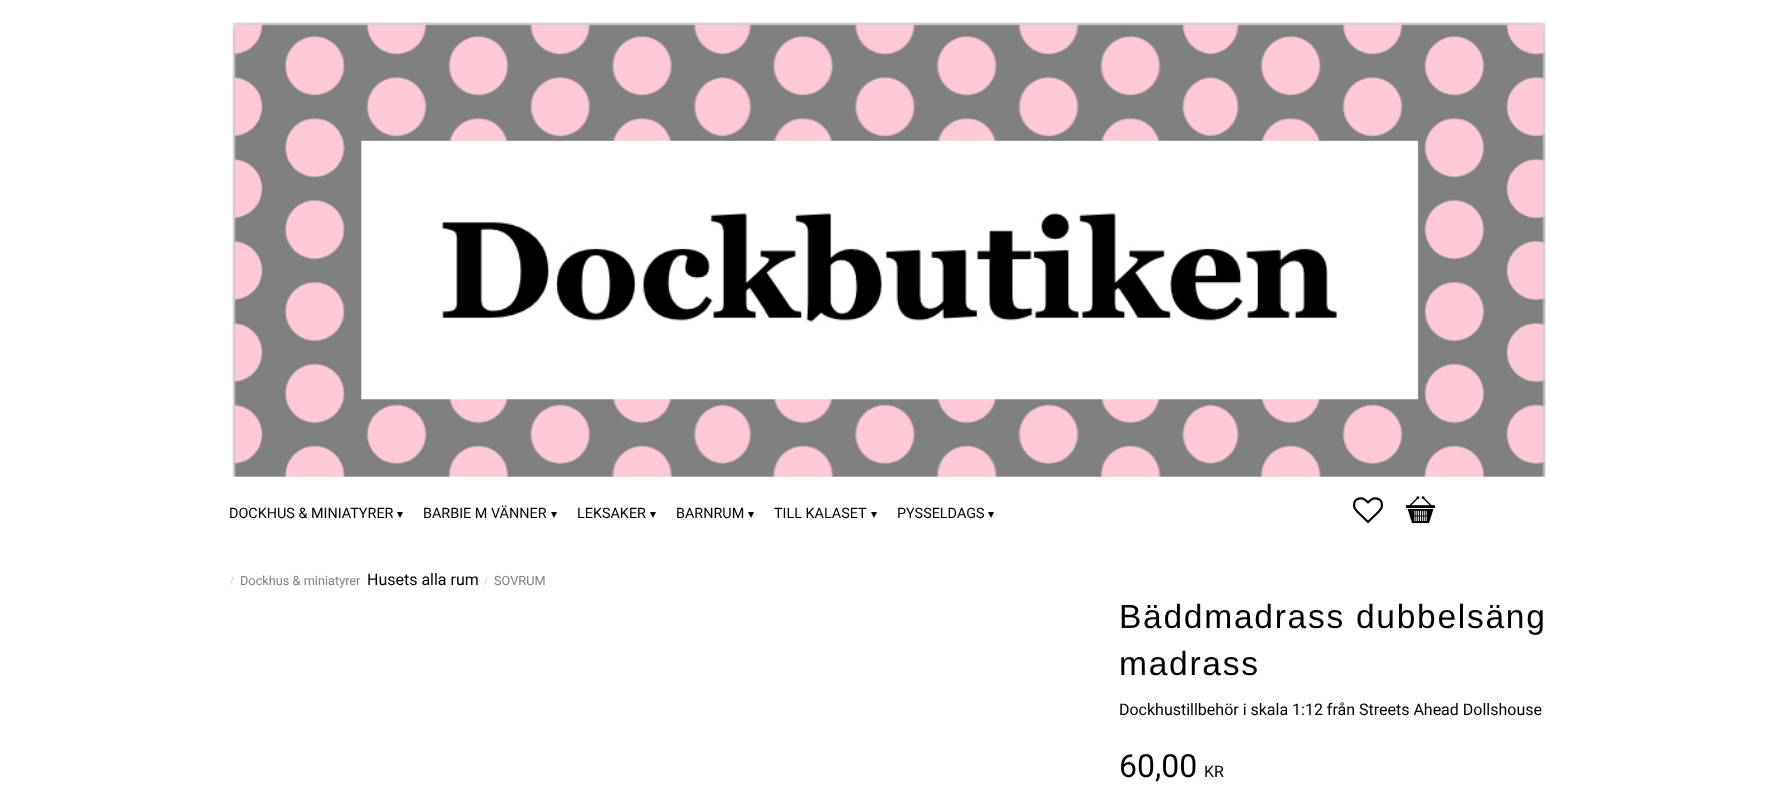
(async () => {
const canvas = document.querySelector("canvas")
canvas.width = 1778
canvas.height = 791
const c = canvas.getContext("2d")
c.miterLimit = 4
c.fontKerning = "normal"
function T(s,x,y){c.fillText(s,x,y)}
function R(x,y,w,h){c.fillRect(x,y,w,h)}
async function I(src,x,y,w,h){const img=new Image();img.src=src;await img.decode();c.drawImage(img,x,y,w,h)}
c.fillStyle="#fff"
R(0,0,1778,791)
await I("1.png",232,22,1314,455)
c.font="14.4px Roboto"
c.fillStyle="#000"
T("DOCKHUS & MINIATYRER",229,518)
c.font="12px DejaVu Sans"
T("▾",397,518)
c.font="14.4px Roboto"
T("BARBIE M VÄNNER",423,518)
c.font="12px DejaVu Sans"
T("▾",551,518)
c.font="14.4px Roboto"
T("LEKSAKER",577,518)
c.font="12px DejaVu Sans"
T("▾",650,518)
c.font="14.4px Roboto"
T("BARNRUM",676,518)
c.font="12px DejaVu Sans"
T("▾",748,518)
c.font="14.4px Roboto"
T("TILL KALASET",774,518)
c.font="12px DejaVu Sans"
T("▾",871,518)
c.font="14.4px Roboto"
T("PYSSELDAGS",897,518)
c.font="12px DejaVu Sans"
T("▾",988,518)
await I("2.png",1353,497,30,26)
await I("3.png",1406,496,30,28)
c.font="12.75px Liberation Serif"
c.fillStyle="#c3c3c3"
T("/",230,585)
c.font="12.75px Roboto"
c.fillStyle="#818181"
T("Dockhus & miniatyrer",240,585)
c.font="16px Roboto"
c.fillStyle="#000"
T("Husets alla rum",367,585)
c.font="12.75px Liberation Serif"
c.fillStyle="#c3c3c3"
T("/",484,585)
c.font="12.75px Roboto"
c.fillStyle="#818181"
T("SOVRUM",494,585)
c.letterSpacing="1.7px"
c.font="33.6px Liberation Sans"
c.fillStyle="#000"
T("Bäddmadrass dubbelsäng",1119,628)
T("madrass",1119,675)
c.letterSpacing="0px"
c.font="16px Roboto"
T("Dockhustillbehör i skala 1:12 från Streets Ahead Dollshouse",1119,715)
c.font="32px Roboto"
T("60,00",1119,777)
c.font="16px Roboto"
T("KR",1204,777)
})()
